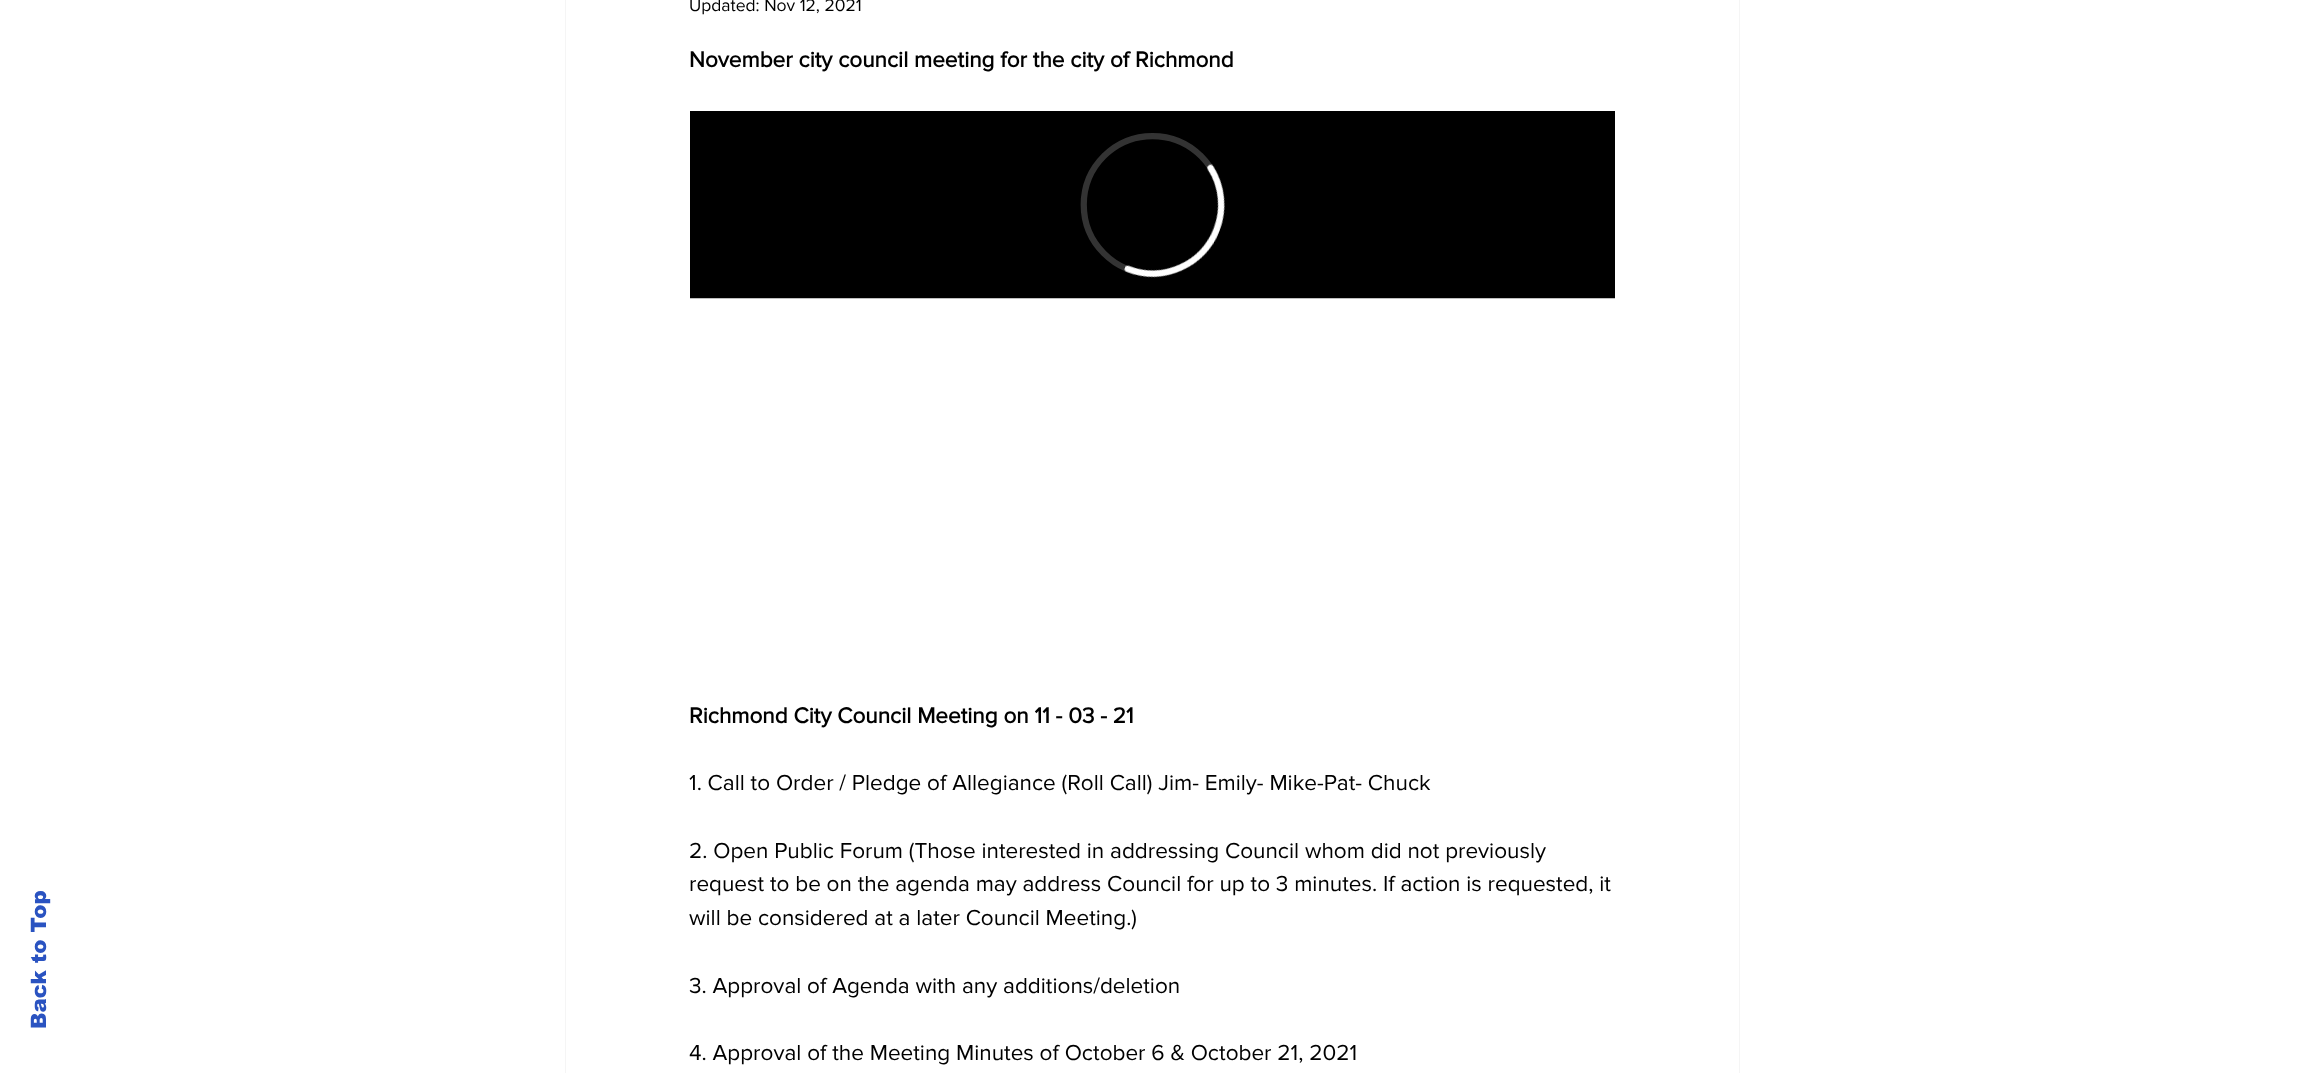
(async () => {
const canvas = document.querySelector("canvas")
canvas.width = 2303
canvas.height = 1073
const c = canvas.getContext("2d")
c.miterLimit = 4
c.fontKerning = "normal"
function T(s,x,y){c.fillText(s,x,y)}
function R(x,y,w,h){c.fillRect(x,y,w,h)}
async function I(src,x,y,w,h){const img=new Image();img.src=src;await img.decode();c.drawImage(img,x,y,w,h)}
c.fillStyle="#fff"
R(0,0,2303,1073)
c.font="900 21.25px arial"
c.fillStyle="#2a53c1"
c.save()
c.translate(46,1029)
c.rotate(-90 * Math.PI / 180)
c.fillText("Back to Top",0,0)
c.restore()
c.strokeStyle="#f5f5f5"
c.strokeRect(565.5,-.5,1174,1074)
c.font="17.5px 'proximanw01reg'"
c.fillStyle="#000"
T("Updated: Nov 12, 2021",689,11)
c.font="bold 22.5px 'proximanw01reg'"
T("November city council meeting for the city of Richmond",689,67)
await I("1.png",690,111,925,188)
T("Richmond City Council Meeting on 11 - 03 - 21",689,723)
c.font="22.5px 'proximanw01reg'"
T("1. Call to Order / Pledge of Allegiance (Roll Call) Jim- Emily- Mike-Pat- Chuck",689,790)
T("2. Open Public Forum (Those interested in addressing Council whom did not previously",689,858)
T("request to be on the agenda may address Council for up to 3 minutes. If action is requested, it",689,891)
T("will be considered at a later Council Meeting.)",689,925)
T("3. Approval of Agenda with any additions/deletion",689,993)
T("4. Approval of the Meeting Minutes of October 6 & October 21, 2021",689,1060)
})()
